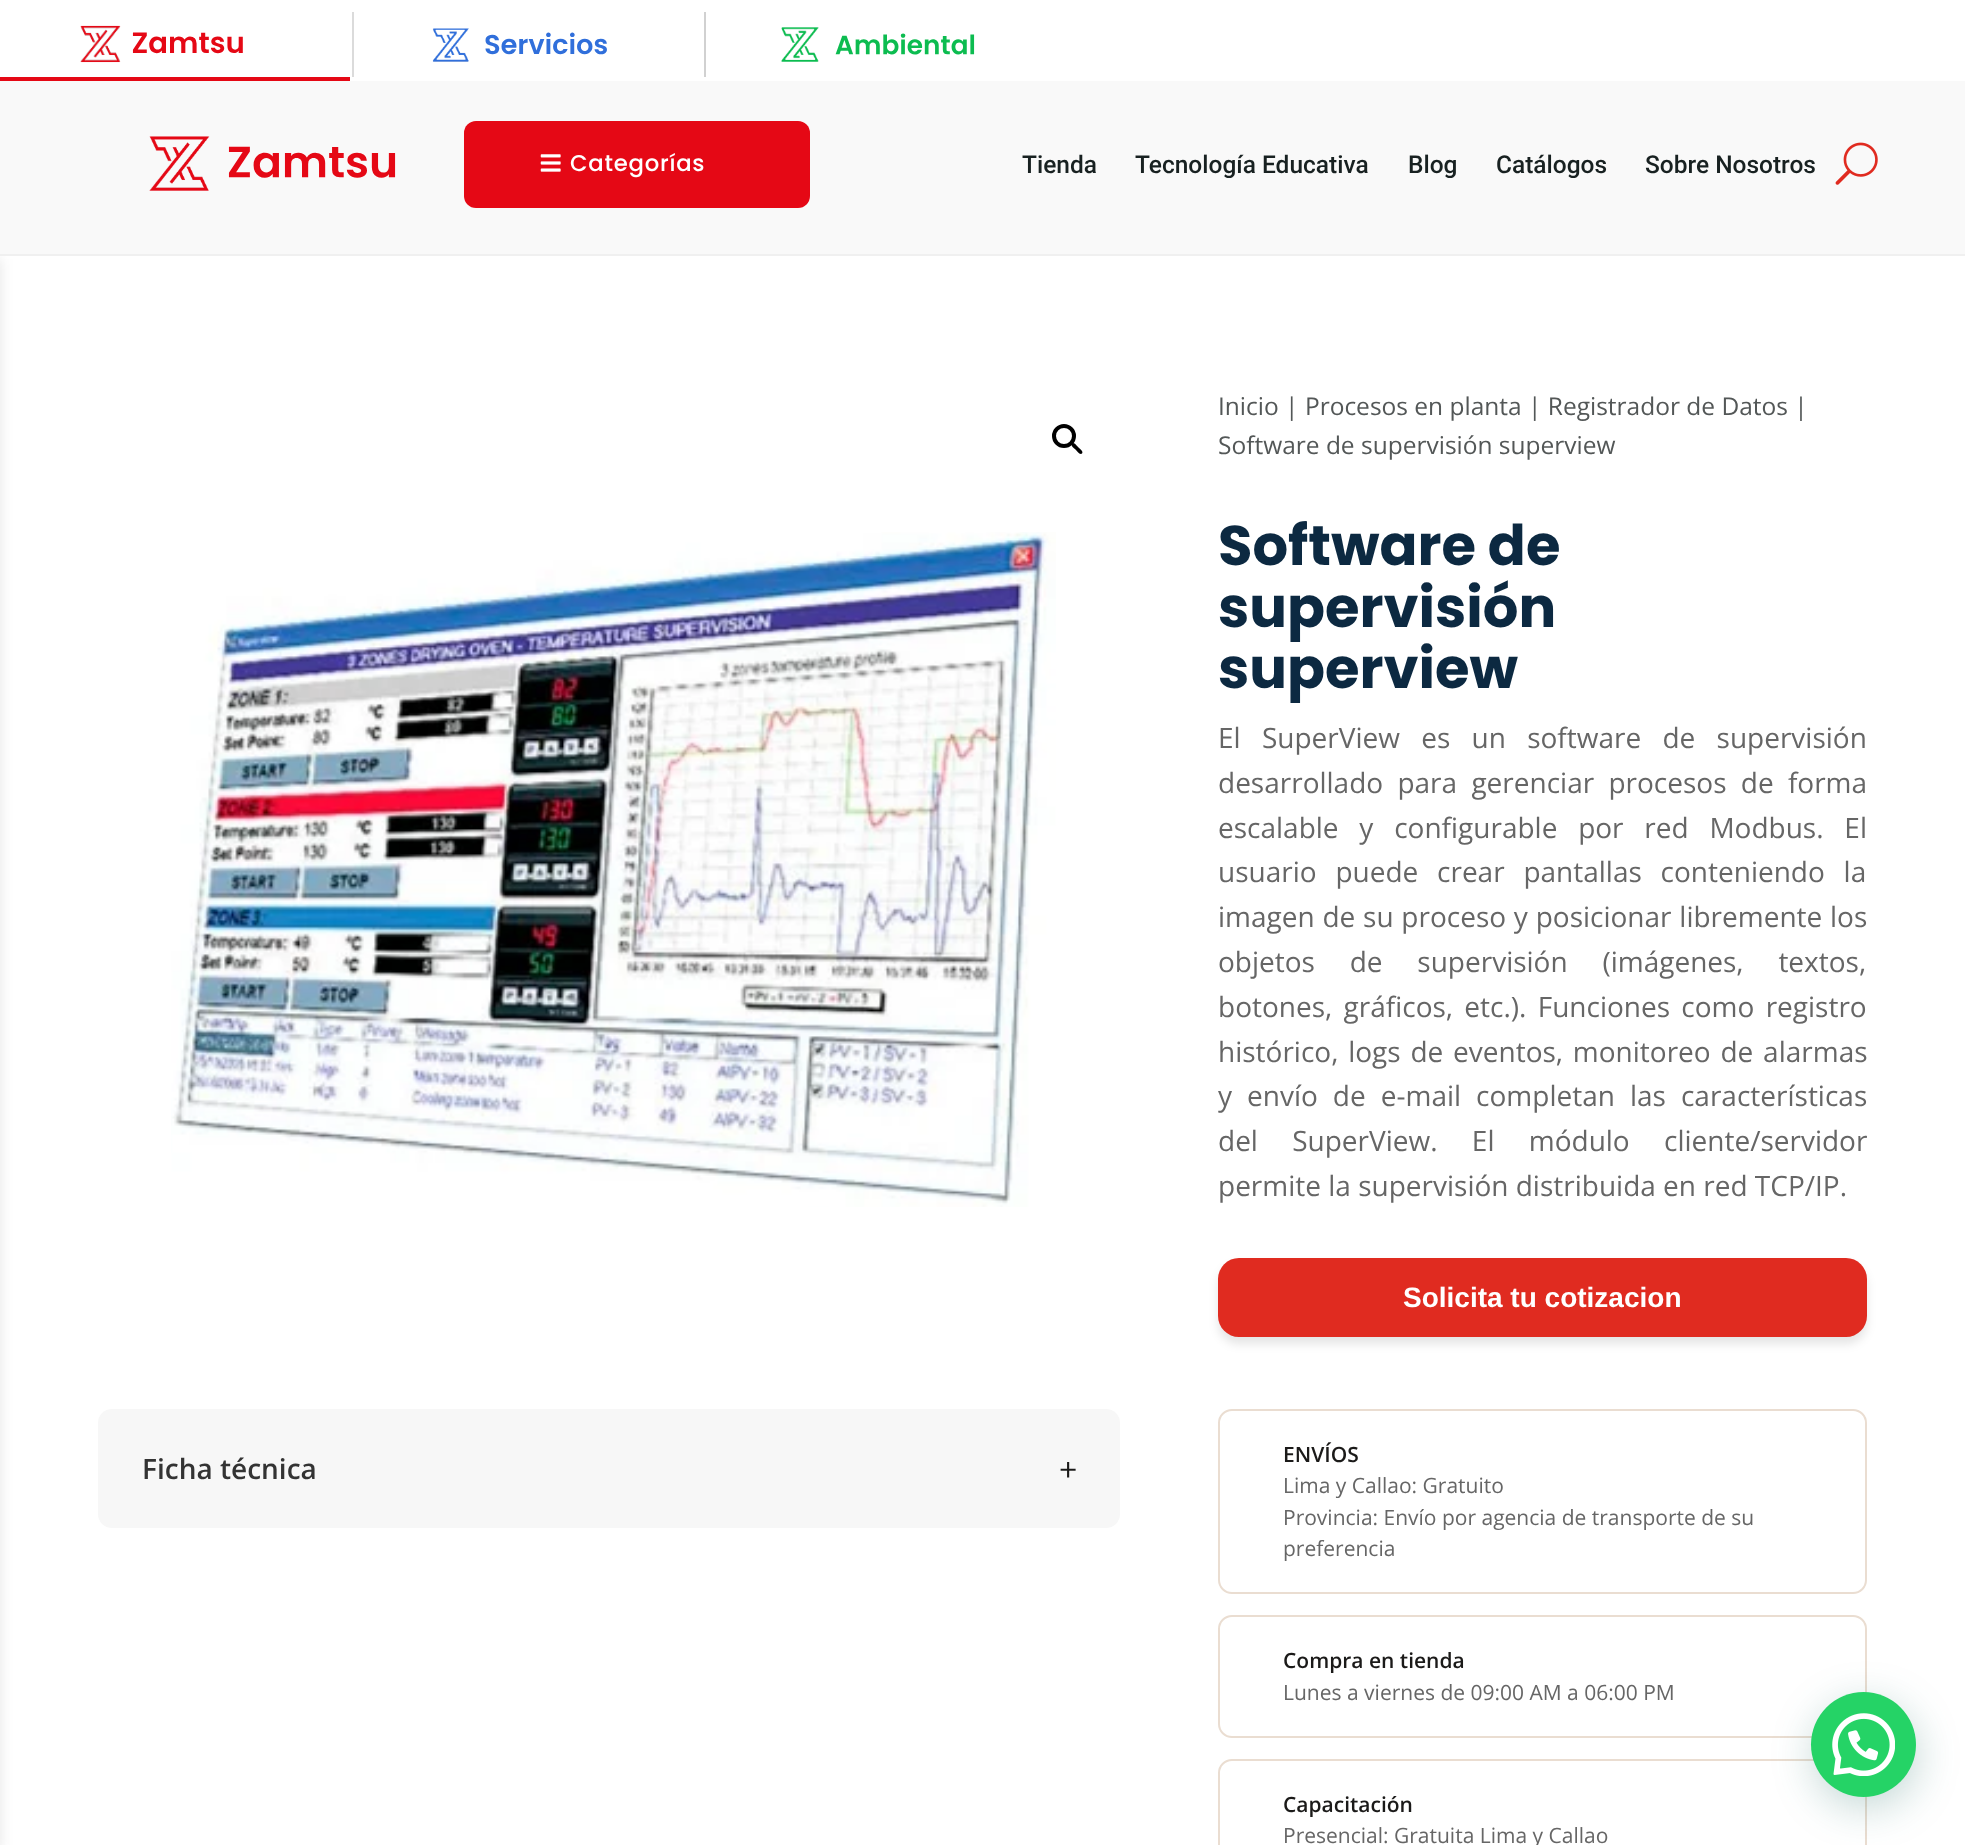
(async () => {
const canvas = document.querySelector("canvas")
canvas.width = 1965
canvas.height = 1845
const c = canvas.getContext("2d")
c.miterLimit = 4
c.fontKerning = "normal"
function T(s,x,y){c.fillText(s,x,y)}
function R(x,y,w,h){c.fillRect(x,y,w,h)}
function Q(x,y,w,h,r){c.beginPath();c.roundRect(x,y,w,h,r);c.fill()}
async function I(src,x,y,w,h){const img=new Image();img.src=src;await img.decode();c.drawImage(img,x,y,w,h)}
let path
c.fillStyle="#fff"
R(0,0,1965,1845)
c.fillStyle="#e50815"
R(0,77,350,4)
await I("1.png",80,25,163,38)
c.fillStyle="#dbdbdb"
R(352,12,2,65)
await I("2.png",432,28,175,34)
c.fillStyle="#d1d1d1"
R(704,12,2,65)
await I("3.png",781,27,194,35)
c.fillStyle="#0000001a"
c.filter="blur(7px)"
c.beginPath()
c.rect(-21,259,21,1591)
c.fill()
c.filter="none"
c.fillStyle="#f9f9f9"
R(0,81,1965,173)
c.fillStyle="#f0f0f0"
R(0,254,1965,2)
await I("4.png",149,136,247,55)
c.fillStyle="#e50815"
Q(464,121,346,87,12)
await I("5.png",540,154,21,18)
c.letterSpacing="0.75px"
c.font="500 22.75px Poppins"
c.fillStyle="#fff"
T("Categorías",570,171)
c.letterSpacing="0px"
c.font="500 24.5px Roboto"
c.fillStyle="#182121"
T("Tienda",1022,173)
T("Tecnología Educativa",1135,173)
T("Blog",1408,173)
T("Catálogos",1496,173)
T("Sobre Nosotros",1645,173)
await I("6.png",1835,142,43,43)
c.beginPath()
c.arc(1064,436,10,0,7)
c.strokeStyle="#000"
c.lineWidth=4
c.stroke()
c.fillStyle="#000"
path = new Path2D("M1072 443.5c2-2 5 2.5 6 3.5c1 1 6 4.5 4 6.5c-2 2-5.5-3-6.5-4c-1-1-5.5-4-3.5-6z")
c.fill(path)
await I("7.png",171,532,885,675)
c.font="24.5px Open Sans"
c.fillStyle="#535757"
T("Inicio | Procesos en planta | Registrador de Datos |",1218,415)
T("Software de supervisión superview",1218,454)
c.font="bold 56px Poppins"
c.fillStyle="#0c2941"
T("Software de",1218,565)
T("supervisión",1218,627)
T("superview",1218,688)
c.wordSpacing="14px"
c.font="28px Open Sans"
c.fillStyle="#666"
T("El SuperView es un software de supervisión",1218,748)
c.wordSpacing="7px"
T("desarrollado para gerenciar procesos de forma",1218,793)
c.wordSpacing="13.5px"
T("escalable y configurable por red Modbus. El",1218,838)
c.wordSpacing="11.5px"
T("usuario puede crear pantallas conteniendo la",1218,882)
c.wordSpacing="0.5px"
T("imagen de su proceso y posicionar libremente los",1218,927)
c.wordSpacing="27.5px"
T("objetos de supervisión (imágenes, textos,",1218,972)
c.wordSpacing="4px"
T("botones, gráficos, etc.). Funciones como registro",1218,1017)
c.wordSpacing="2.5px"
T("histórico, logs de eventos, monitoreo de alarmas",1218,1062)
c.wordSpacing="7.75px"
T("y envío de e-mail completan las características",1218,1106)
c.wordSpacing="27px"
T("del SuperView. El módulo cliente/servidor",1218,1151)
c.wordSpacing="0px"
T("permite la supervisión distribuida en red TCP/IP.",1218,1196)
c.fillStyle="#0000001a"
c.filter="blur(5px)"
c.beginPath()
c.roundRect(1218,1265,649,79,21)
c.fill()
c.filter="none"
c.fillStyle="#e02b20"
Q(1218,1258,649,79,21)
c.font="bold 28px Liberation Sans"
c.fillStyle="#fff"
T("Solicita tu cotizacion",1403,1307)
c.fillStyle="#f7f7f7"
Q(98,1409,1022,119,14)
c.font="600 28px Open Sans"
c.fillStyle="#333"
T("Ficha técnica",142,1479)
c.font="32px Open Sans"
c.fillStyle="#1b1a19"
T("+",1059,1481)
c.beginPath()
c.roundRect(1219,1410,647,183,13)
c.strokeStyle="#eaddd1"
c.lineWidth=2
c.stroke()
c.font="600 21px Open Sans"
T("ENVÍOS",1283,1462)
c.font="21px Open Sans"
c.fillStyle="#666"
T("Lima y Callao: Gratuito",1283,1493)
T("Provincia: Envío por agencia de transporte de su",1283,1525)
T("preferencia",1283,1556)
c.beginPath()
c.roundRect(1219,1616,647,121,13)
c.stroke()
c.font="600 21px Open Sans"
c.fillStyle="#1b1a19"
T("Compra en tienda",1283,1668)
c.font="21px Open Sans"
c.fillStyle="#666"
T("Lunes a viernes de 09:00 AM a 06:00 PM",1283,1700)
c.beginPath()
c.roundRect(1219,1760,647,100,13)
c.stroke()
c.font="600 21px Open Sans"
c.fillStyle="#1b1a19"
T("Capacitación",1283,1812)
c.font="21px Open Sans"
c.fillStyle="#666"
T("Presencial: Gratuita Lima y Callao",1283,1843)
c.fillStyle="#075e543d"
c.filter="blur(21px)"
c.beginPath()
c.roundRect(1813,1703,105,105,52.5)
c.fill()
c.filter="none"
c.fillStyle="#25d366"
c.beginPath()
c.arc(1863.5,1744.5,52.5,0,7)
c.fill()
await I("8.png",1832,1713,63,63)
})()
